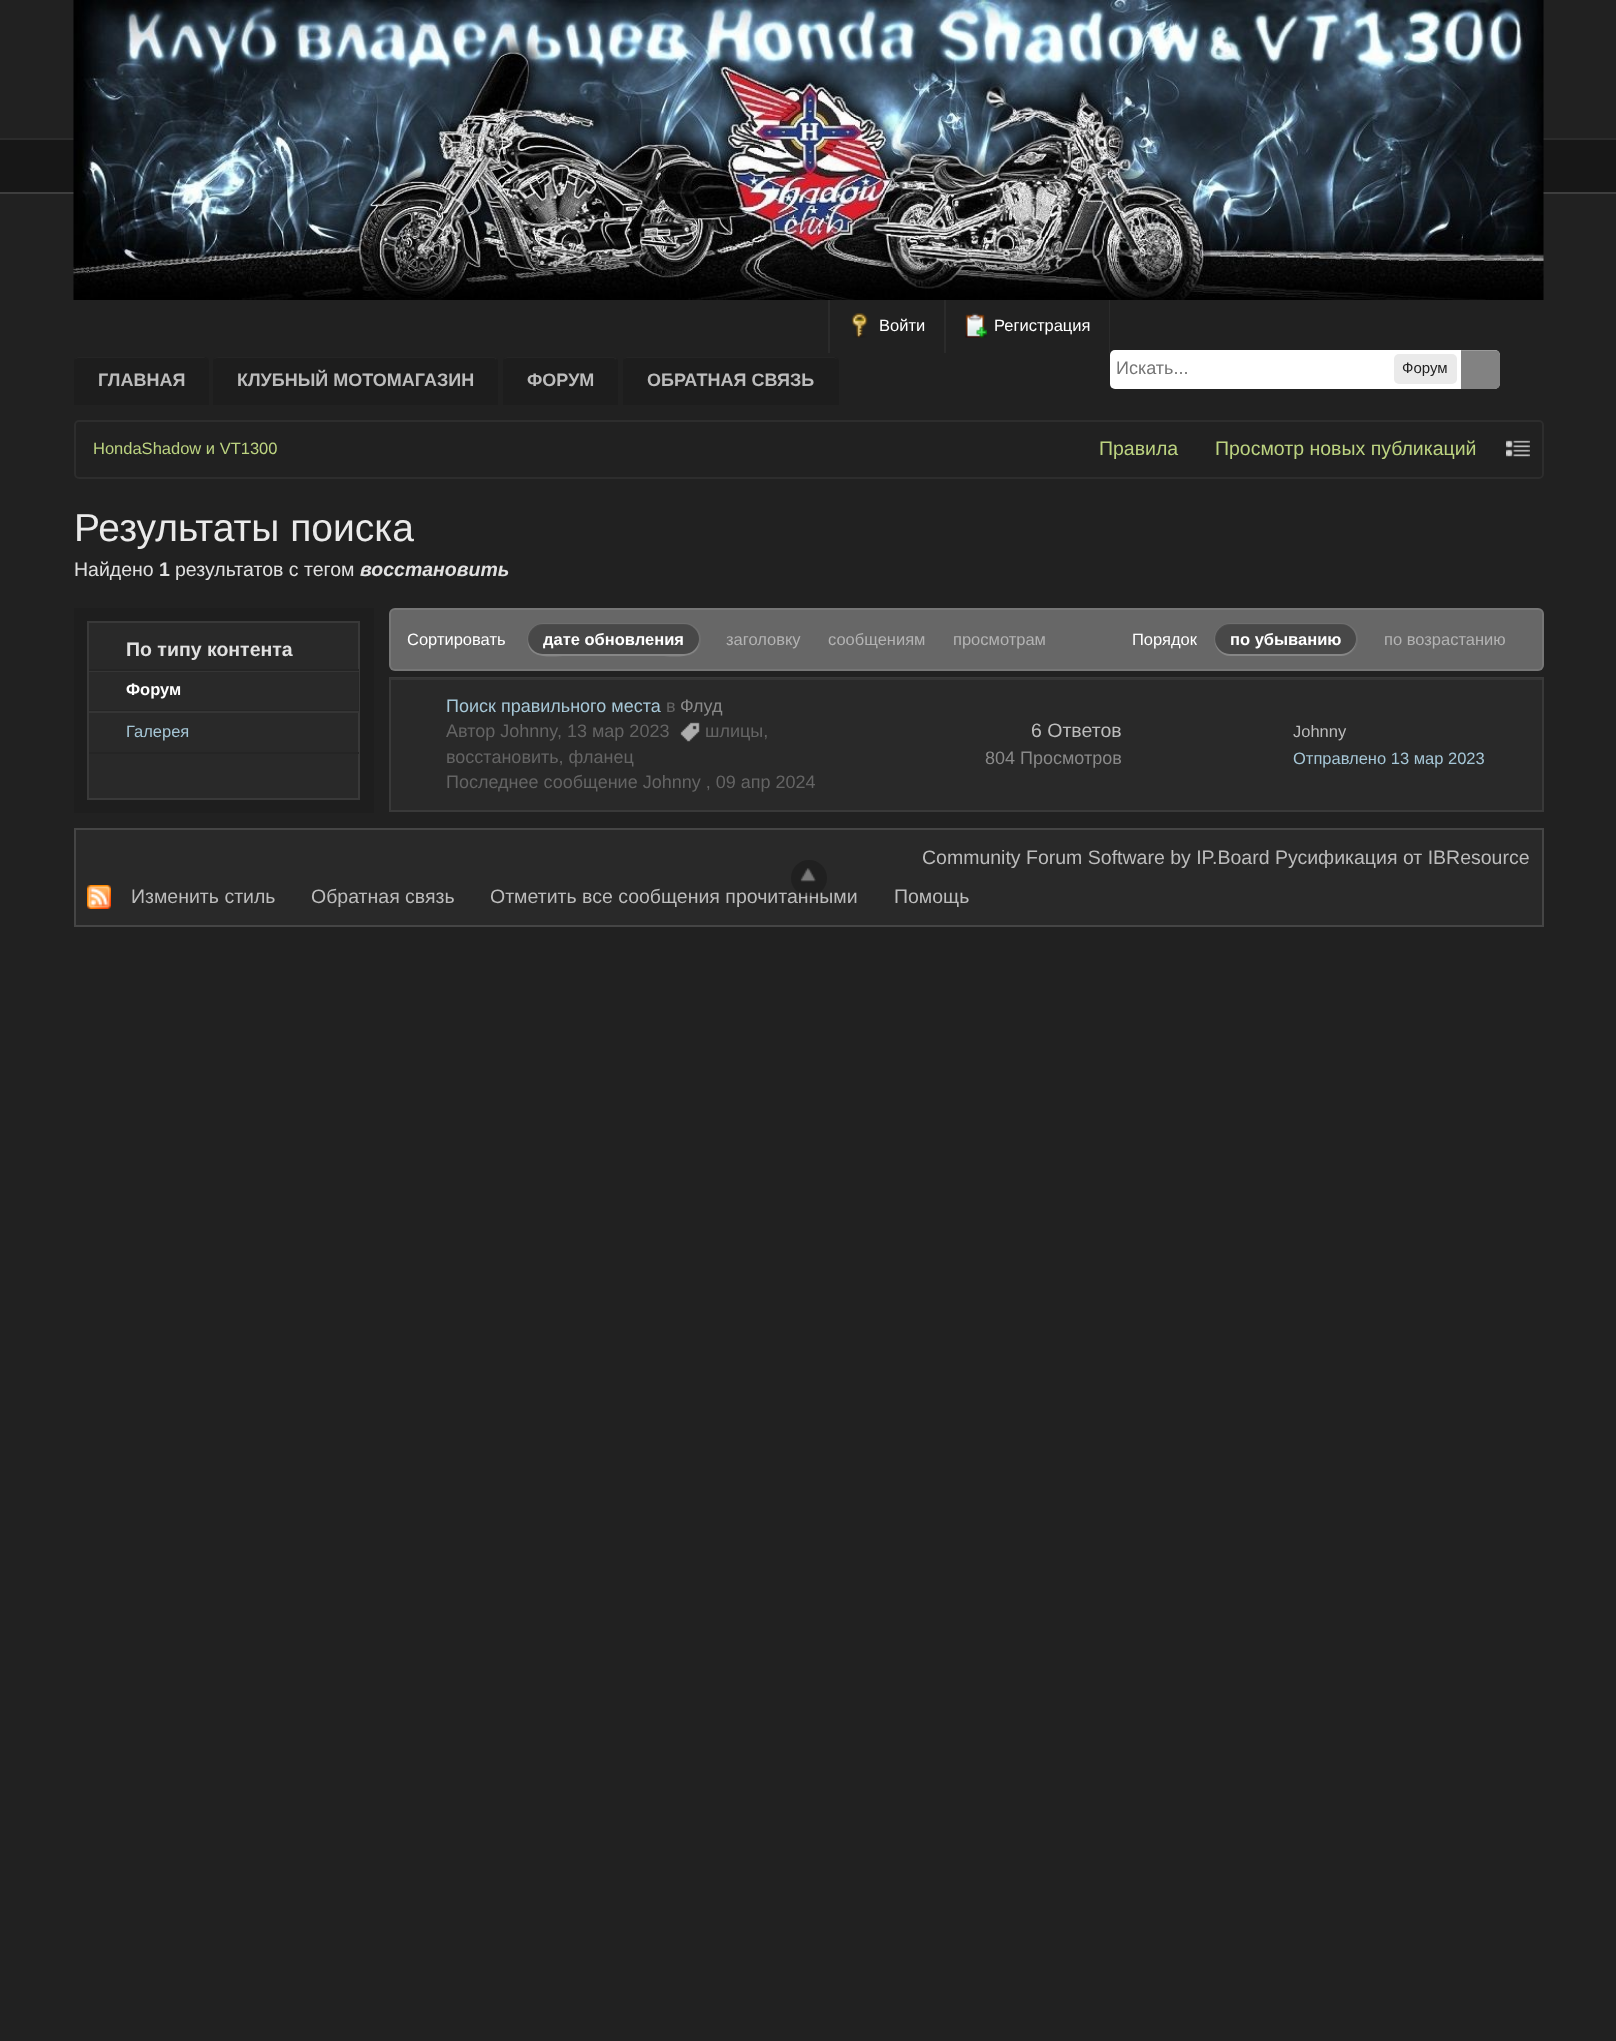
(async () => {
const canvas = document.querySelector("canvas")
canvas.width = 1616
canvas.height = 2041
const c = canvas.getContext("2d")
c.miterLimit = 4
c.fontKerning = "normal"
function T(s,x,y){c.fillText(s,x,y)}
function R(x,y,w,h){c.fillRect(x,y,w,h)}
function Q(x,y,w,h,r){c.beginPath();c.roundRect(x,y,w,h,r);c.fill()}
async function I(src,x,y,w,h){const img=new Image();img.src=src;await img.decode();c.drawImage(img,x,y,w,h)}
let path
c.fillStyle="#212121"
R(0,0,1616,2041)
c.fillStyle="#171717"
R(0,140,1616,52)
c.fillStyle="#2b2b2b"
R(0,138,1616,2)
c.fillStyle="#3e3e3e"
R(0,192,1616,2)
c.fillStyle="#2b2b2b"
R(828,300,2,53)
R(944,300,2,53)
await I("1.png",851,313,17,25)
c.font="16.5px Liberation Sans"
c.fillStyle="#fff"
T("Войти",879,331)
c.fillStyle="#2b2b2b"
R(1109,300,1,53)
await I("2.png",965,313,22,25)
c.fillStyle="#fff"
T("Регистрация",994,331)
c.fillStyle="#1d1d1d"
c.beginPath()
c.roundRect(74,357,135,48,[5,5,0,0])
c.fill()
c.fillStyle="#252525"
path = new Path2D("M78 357h126l3 2h-1l-1-1h-127l-2 1h-1c1-1 2-2 3-2z")
c.fill(path)
c.font="bold 18px Liberation Sans"
c.fillStyle="#bcbcbc"
T("ГЛАВНАЯ",98,386)
c.fillStyle="#1d1d1d"
c.beginPath()
c.roundRect(213,357,285,48,[5,5,0,0])
c.fill()
c.fillStyle="#252525"
path = new Path2D("M218 357c-2 0-3 1-4 1l1 1c1-1 2-1 3-1h276c1 0 1 1 1 2l2-2l-3-1z")
c.fill(path)
c.fillStyle="#bcbcbc"
T("КЛУБНЫЙ МОТОМАГАЗИН",237,386)
c.fillStyle="#1d1d1d"
c.beginPath()
c.roundRect(503,357,115,48,[5,5,0,0])
c.fill()
c.fillStyle="#252525"
path = new Path2D("M507 357l-3 1l1 1l2-1h107l1 2l2-2l-3-1z")
c.fill(path)
c.fillStyle="#bcbcbc"
T("ФОРУМ",527,386)
c.fillStyle="#1d1d1d"
c.beginPath()
c.roundRect(623,357,216,48,[5,5,0,0])
c.fill()
c.fillStyle="#252525"
path = new Path2D("M627 357l-3 1l1 1l1-1h208l2 1h1c-1-1-2-2-3-2z")
c.fill(path)
c.fillStyle="#bcbcbc"
T("ОБРАТНАЯ СВЯЗЬ",647,386)
await I("3.png",73,0,1471,300)
c.fillStyle="#fff"
c.beginPath()
c.roundRect(1110,350,390,39,[5,6,6,5])
c.fill()
c.font="18px Liberation Sans"
c.fillStyle="#757575"
T("Искать...",1116,374)
c.fillStyle="#eaeaea"
Q(1394,354,63,30,5)
c.font="15px Liberation Sans"
c.fillStyle="#222"
T("Форум",1402,373)
c.fillStyle="#828282"
c.beginPath()
c.roundRect(1461,350,39,39,[0,5,5,0])
c.fill()
c.fillStyle="#ffffff33"
path = new Path2D("M1461 351h35c2 0 4 2 4 5v-1c0-3-2-5-5-5h-34z")
c.fill(path)
c.beginPath()
c.roundRect(75,421,1468,57,4)
c.strokeStyle="#2d2d2d"
c.lineWidth=2
c.stroke()
c.font="16.5px Liberation Sans"
c.fillStyle="#bcd380"
T("HondaShadow и VT1300",93,454)
c.font="19.5px Liberation Sans"
T("Правила",1099,455)
T("Просмотр новых публикаций",1215,455)
await I("4.png",1506,440,24,17)
c.font="39px Liberation Sans"
c.fillStyle="#eaeaea"
T("Результаты поиска",74,541)
c.font="19.5px Liberation Sans"
c.fillStyle="#e0e0e0"
T("Найдено",74,576)
c.font="bold 19.5px Liberation Sans"
T("1",159,576)
c.font="19.5px Liberation Sans"
T("результатов с тегом",175,576)
c.font="italic bold 19.5px Liberation Sans"
T("восстановить",360,576)
c.fillStyle="#1e1e1e"
R(74,608,300,205)
c.fillStyle="#292929"
c.beginPath()
c.rect(88,622,271,177)
c.fill()
c.strokeStyle="#393939"
c.stroke()
c.font="bold 19.5px Liberation Sans"
c.fillStyle="#e0e0e0"
T("По типу контента",126,656)
c.fillStyle="#252525"
R(89,669,270,2)
c.fillStyle="#353535"
R(89,671,270,1)
c.fillStyle="#252525"
R(89,710,270,1)
c.fillStyle="#282828"
R(358,672,1,38)
c.font="bold 16.5px Liberation Sans"
c.fillStyle="#fff"
T("Форум",126,695)
c.fillStyle="#353535"
R(89,711,270,2)
c.fillStyle="#252525"
R(89,752,270,2)
c.font="16.5px Liberation Sans"
c.fillStyle="#a6c7d7"
T("Галерея",126,737)
c.fillStyle="#676767"
Q(389,608,1155,63,6)
c.beginPath()
c.roundRect(390,609,1153,61,5)
c.strokeStyle="#ffffff1a"
c.stroke()
c.fillStyle="#fff"
T("Сортировать",407,645)
c.beginPath()
c.roundRect(528,624,172,31,15.5)
c.strokeStyle="#6f6f6f"
c.stroke()
c.fillStyle="#ffffff29"
path = new Path2D("M528 640c-1 21 27 16 38 16h94c12 0 40 5 39-16c-1 8-7 14-15 14h-141c-8 0-14-6-15-14z")
c.fill(path)
c.fillStyle="#0000004d"
Q(528,624,171,30,15)
c.font="bold 16.5px Liberation Sans"
c.fillStyle="#fff"
T("дате обновления",543,645)
c.font="16.5px Liberation Sans"
c.fillStyle="#b3b3b3"
T("заголовку",726,645)
T("сообщениям",828,645)
T("просмотрам",953,645)
c.fillStyle="#fff"
T("Порядок",1132,645)
c.beginPath()
c.roundRect(1215,624,142,31,15.5)
c.stroke()
c.fillStyle="#ffffff29"
path = new Path2D("M1215 640v1c0 8 7 15 15 15h111c8 0 15-7 15-15v-1c-1 8-7 14-15 14h-111c-8 0-14-6-15-14z")
c.fill(path)
c.fillStyle="#0000004d"
Q(1215,624,141,30,15)
c.font="bold 16.5px Liberation Sans"
c.fillStyle="#fff"
T("по убыванию",1230,645)
c.font="16.5px Liberation Sans"
c.fillStyle="#b3b3b3"
T("по возрастанию",1384,645)
c.fillStyle="#292929"
R(391,680,1151,130)
c.strokeStyle="#393939"
c.strokeRect(390,678,1153,133)
c.fillStyle="#353535"
R(390,678,1152,2)
c.font="18px Liberation Sans"
c.fillStyle="#a6c7d7"
T("Поиск правильного места",446,712)
c.fillStyle="#646464"
T("в",666,712)
c.fillStyle="#898989"
T("Флуд",680,712)
c.fillStyle="#646464"
T("Автор Johnny, 13 мар 2023",446,737)
await I("5.png",680,722,20,20)
T("шлицы,",705,737)
T("восстановить, фланец",446,763)
T("Последнее сообщение Johnny , 09 апр 2024",446,788)
c.font="19.5px Liberation Sans"
c.fillStyle="#bcbcbc"
T("6 Ответов",1031,737)
c.font="18px Liberation Sans"
c.fillStyle="#898989"
T("804 Просмотров",985,764)
c.font="16.5px Liberation Sans"
c.fillStyle="#bcbcbc"
T("Johnny",1293,737)
c.fillStyle="#a6c7d7"
T("Отправлено 13 мар 2023",1293,764)
c.fillStyle="#292929"
c.beginPath()
c.rect(75,829,1468,97)
c.fill()
c.strokeStyle="#454545"
c.stroke()
c.font="19.5px Liberation Sans"
c.fillStyle="#bcbcbc"
T("Отметить все сообщения прочитанными",490,903)
c.fillStyle="#15151566"
c.beginPath()
c.arc(809,878,18,0,7)
c.fill()
await I("6.png",800,868,16,14)
c.fillStyle="#bcbcbc"
T("Community Forum Software by IP.Board Русификация от IBResource",922,864)
await I("7.png",87,885,24,24)
T("Изменить стиль",131,903)
T("Обратная связь",311,903)
T("Помощь",894,903)
})()
